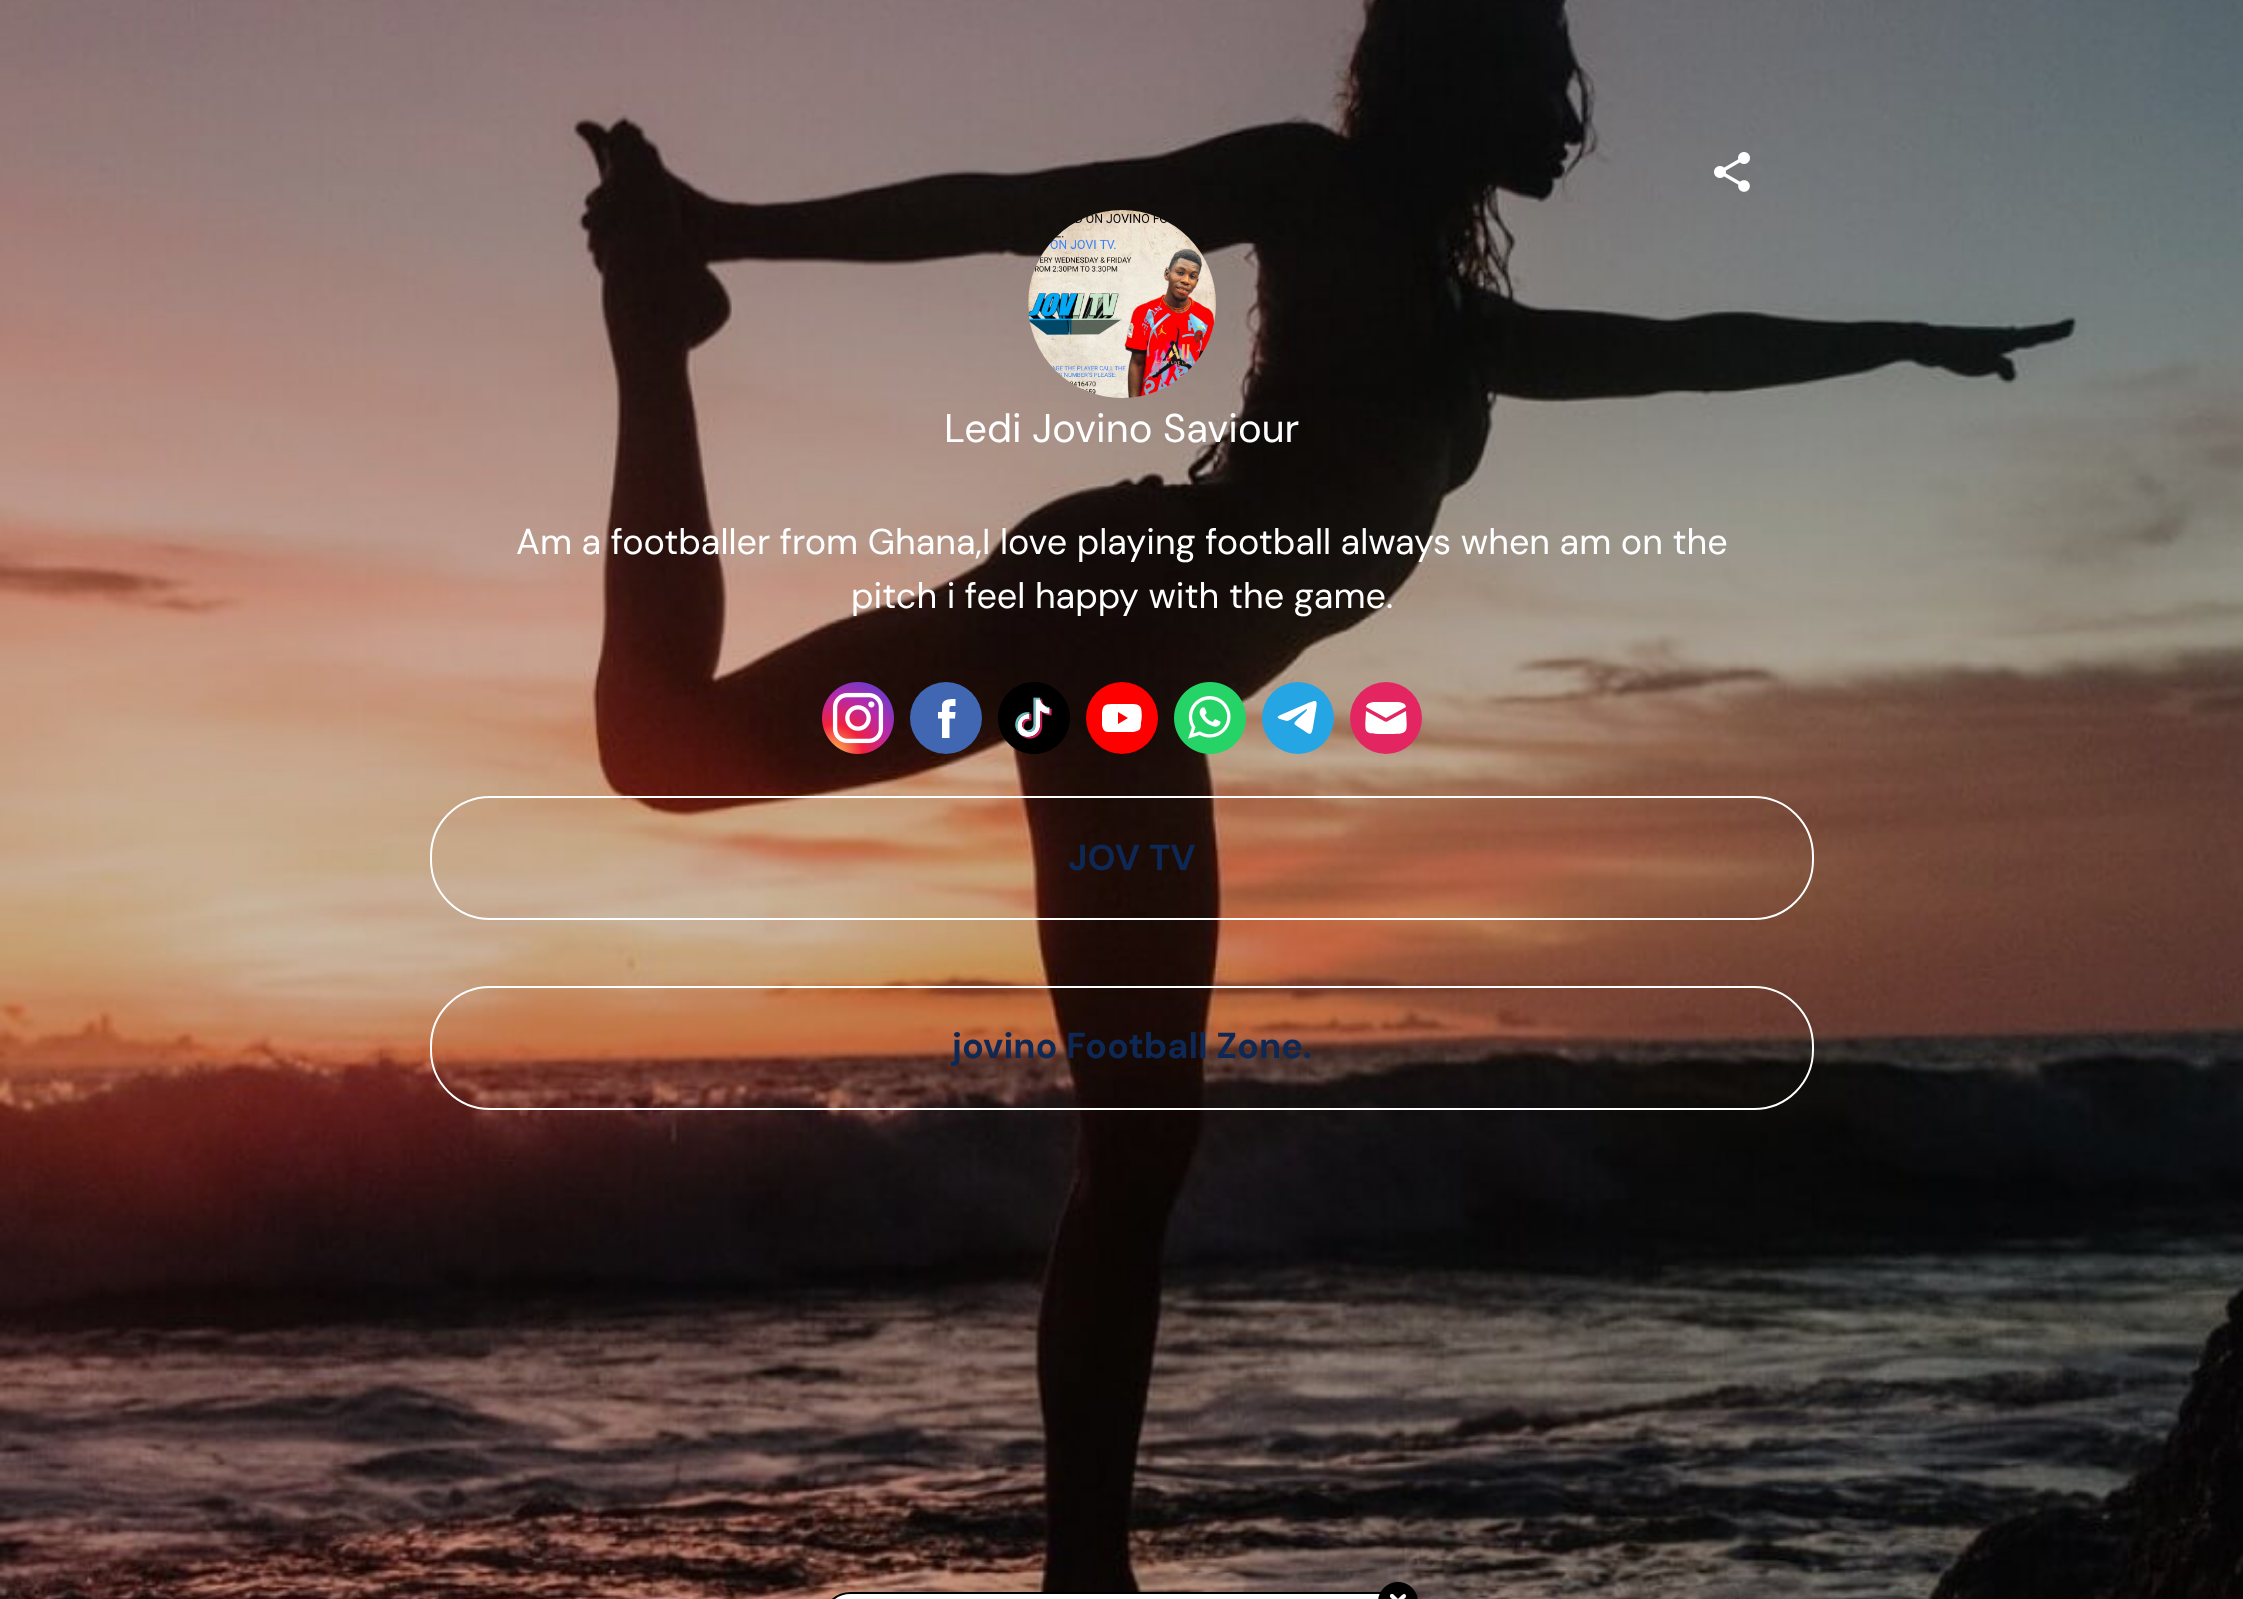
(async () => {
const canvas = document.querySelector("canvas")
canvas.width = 2243
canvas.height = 1599
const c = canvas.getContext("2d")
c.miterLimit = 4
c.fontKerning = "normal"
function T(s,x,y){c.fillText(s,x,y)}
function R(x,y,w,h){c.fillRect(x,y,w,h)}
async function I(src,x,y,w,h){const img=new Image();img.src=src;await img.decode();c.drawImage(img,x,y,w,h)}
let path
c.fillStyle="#fff"
R(0,0,2243,1599)
await I("1.png",0,0,2243,1599)
await I("2.png",1714,152,36,40)
await I("3.png",1028,210,188,188)
c.font="40px DM Sans"
T("Ledi Jovino Saviour",944,442)
c.font="36px DM Sans"
T("Am a footballer from Ghana,I love playing football always when am on the",516,554)
T("pitch i feel happy with the game.",851,608)
await I("4.png",822,682,72,72)
c.fillStyle="#4267b2"
c.beginPath()
c.arc(946,718,36,0,7)
c.fill()
c.fillStyle="#fff"
path = new Path2D("M942 738h7.5v-19.5h5.5l.5-6.5h-6c0-7-.5-6 6-6v-7c-5 0-12.5-.5-13.5 6v7h-4v6.5h4z")
c.fill(path)
await I("5.png",998,682,72,72)
c.fillStyle="#f00"
c.beginPath()
c.arc(1122,718,36,0,7)
c.fill()
c.fillStyle="#fff"
path = new Path2D("M1141 708c-2-5-9-4-13-4h-13c-10 0-12 0-13 9v12c1 7 4 7 10 7h21c7-1 8-3 8-9c1-5 1-10 0-15zm-23 16v-12l10 6z")
c.fill(path)
await I("6.png",1174,682,72,72)
c.fillStyle="#26a5e5"
c.beginPath()
c.arc(1298,718,36,0,7)
c.fill()
c.fillStyle="#fff"
path = new Path2D("M1280.5 715l29-12.5c6.5-2.5 7.5-2.5 7 3.5l-3.5 21c-1.5 8-2.5 8.5-8.5 4c-2-1.5-9-5.5-10-7c-1-3 13-12.5 12.5-14.5l-.5-.5l-16.5 11l-3 1l-5.5-1.5c-3.5-1-6-2.5-1-4.5z")
c.fill(path)
c.fillStyle="#e32662"
c.beginPath()
c.arc(1386,718,36,0,7)
c.fill()
c.fillStyle="#fff"
path = new Path2D("M1366 711c-1 23-4 23 20 23c24 0 21 0 20-23l-18 10c-1 1-3 1-4 0z")
c.fill(path)
path = new Path2D("M1366 707l20 11l20-11c-1-5-7-5-11-5h-18c-4 0-10 0-11 5z")
c.fill(path)
c.beginPath()
c.roundRect(431,797,1382,122,59)
c.strokeStyle="#fff"
c.lineWidth=2
c.stroke()
c.font="bold 36px DM Sans"
c.fillStyle="#0d2854"
T("JOV TV",1068,870)
c.beginPath()
c.roundRect(431,987,1382,122,59)
c.stroke()
T("jovino Football Zone.",952,1058)
c.fillStyle="#fff"
c.beginPath()
c.roundRect(823,1593,598,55,47)
c.fill()
c.strokeStyle="#000"
c.stroke()
await I("7.png",1378,1582,40,17)
})()
